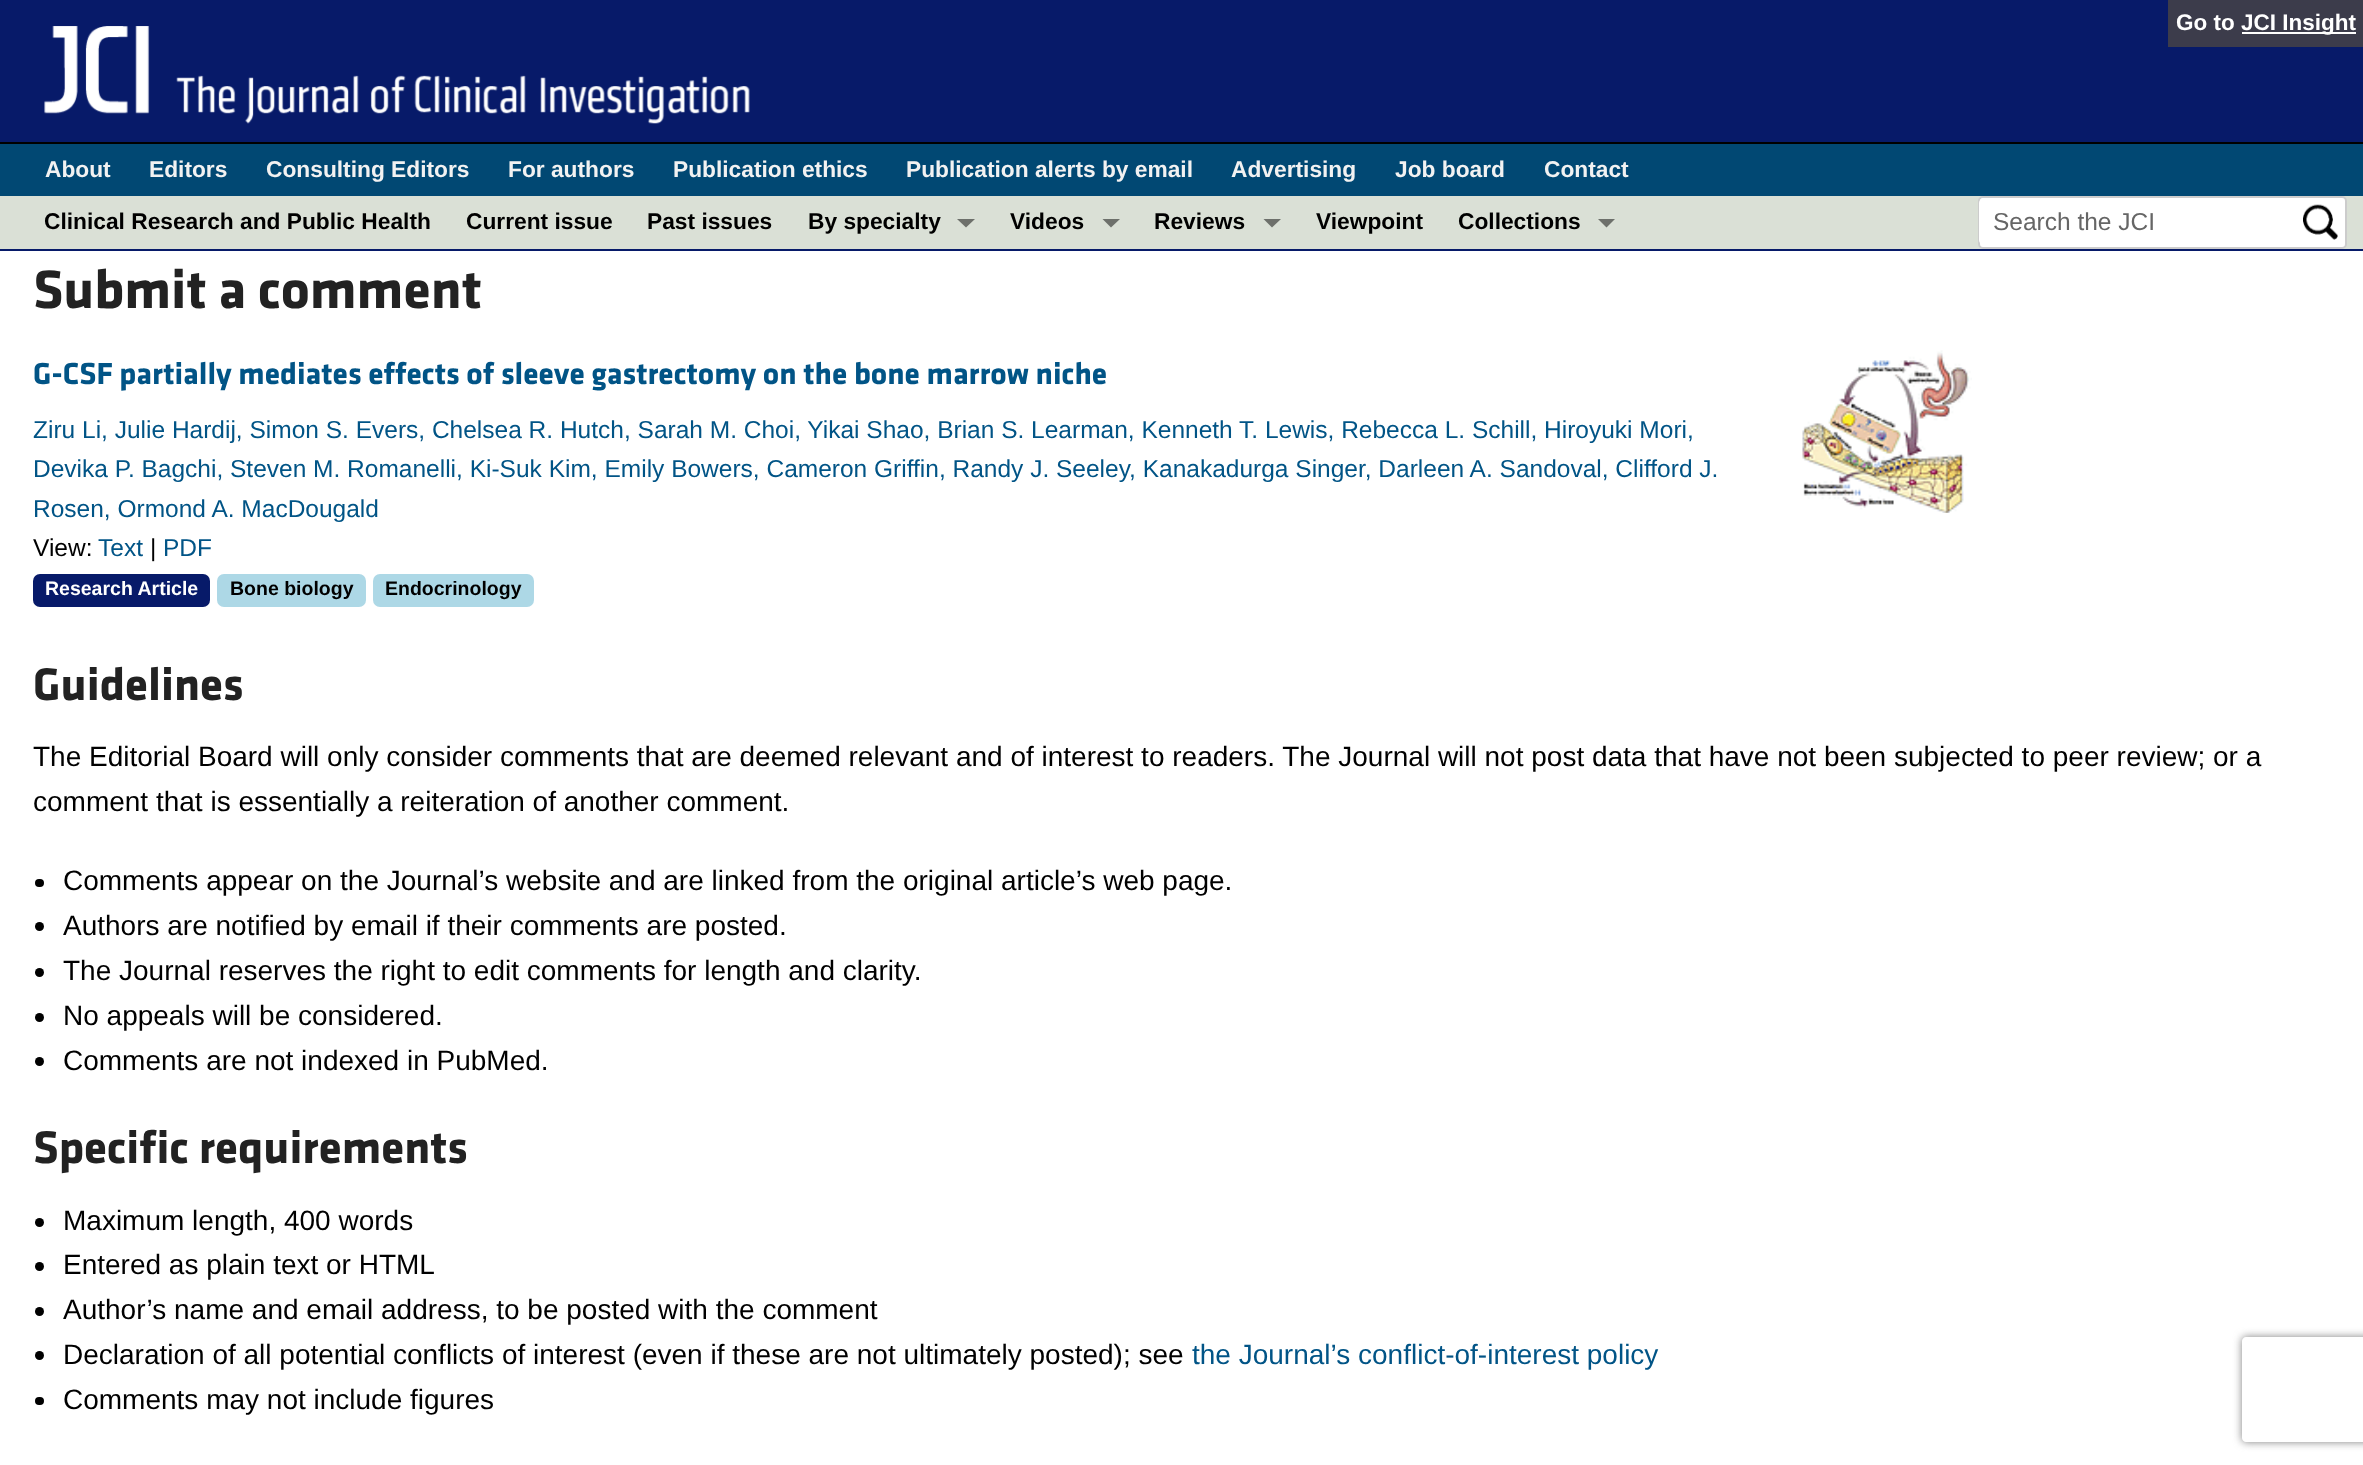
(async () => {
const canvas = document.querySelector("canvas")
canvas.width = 2363
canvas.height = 1465
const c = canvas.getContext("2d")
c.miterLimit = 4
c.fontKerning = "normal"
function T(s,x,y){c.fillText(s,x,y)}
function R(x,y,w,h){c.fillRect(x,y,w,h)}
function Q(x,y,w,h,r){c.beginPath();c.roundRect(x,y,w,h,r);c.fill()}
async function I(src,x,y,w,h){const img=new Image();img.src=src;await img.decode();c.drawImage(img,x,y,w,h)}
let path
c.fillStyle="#fff"
R(0,0,2363,1465)
c.fillStyle="#071a69"
R(0,0,2363,142)
await I("1.png",44,26,706,98)
c.fillStyle="#3c3c4b"
R(2168,0,195,47)
c.font="bold 22.5px Liberation Sans"
c.fillStyle="#fff"
T("Go to",2176,30)
R(2242,32,114,2)
T("JCI Insight",2241,30)
c.fillStyle="#014873"
R(0,144,2363,52)
c.fillStyle="#000"
R(0,142,2363,2)
c.font="bold 22.75px Liberation Sans"
c.fillStyle="#f2f2f2"
T("About",45,177)
T("Editors",149,177)
T("Consulting Editors",266,177)
T("For authors",508,177)
T("Publication ethics",673,177)
T("Publication alerts by email",906,177)
T("Advertising",1231,177)
T("Job board",1395,177)
T("Contact",1544,177)
c.fillStyle="#dae0d6"
R(0,196,2363,53)
c.fillStyle="#071a69"
R(0,249,2363,2)
c.fillStyle="#000"
T("Clinical Research and Public Health",44,229)
T("Current issue",466,229)
T("Past issues",647,229)
T("By specialty",808,229)
c.fillStyle="#6d706b"
path = new Path2D("M957 219h18l-9 8.5z")
c.fill(path)
c.fillStyle="#000"
T("Videos",1010,229)
c.fillStyle="#6d706b"
path = new Path2D("M1102.5 219h17.5l-9 8.5z")
c.fill(path)
c.fillStyle="#000"
T("Reviews",1154,229)
c.fillStyle="#6d706b"
path = new Path2D("M1263.5 219h17.5l-9 8.5z")
c.fill(path)
c.fillStyle="#000"
T("Viewpoint",1316,229)
T("Collections",1458,229)
c.fillStyle="#6d706b"
path = new Path2D("M1598 219h17l-8.5 8.5z")
c.fill(path)
c.fillStyle="#fff"
c.beginPath()
c.roundRect(1979,197,367,51,4)
c.fill()
c.strokeStyle="#ccc"
c.lineWidth=2
c.stroke()
Q(1979,198,312,47,5)
c.font="24.5px Liberation Sans"
c.fillStyle="#666"
T("Search the JCI",1993,230)
await I("2.png",2303,204,35,36)
c.font="bold 56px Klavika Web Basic"
c.fillStyle="#222"
T("Submit a comment",33,308)
c.font="bold 31.5px Klavika Web Basic"
c.fillStyle="#015486"
T("G-CSF partially mediates effects of sleeve gastrectomy on the bone marrow niche",33,384)
c.font="24.5px Liberation Sans"
T("Ziru Li, Julie Hardij, Simon S. Evers, Chelsea R. Hutch, Sarah M. Choi, Yikai Shao, Brian S. Learman, Kenneth T. Lewis, Rebecca L. Schill, Hiroyuki Mori,",33,438)
T("Devika P. Bagchi, Steven M. Romanelli, Ki-Suk Kim, Emily Bowers, Cameron Griffin, Randy J. Seeley, Kanakadurga Singer, Darleen A. Sandoval, Clifford J.",33,477)
T("Rosen, Ormond A. MacDougald",33,517)
c.fillStyle="#000"
T("View:",33,556)
c.fillStyle="#015486"
T("Text",98,556)
c.fillStyle="#000"
T("|",150,556)
c.fillStyle="#015486"
T("PDF",163,556)
c.fillStyle="#071a69"
Q(33,574,177,33,7)
c.font="bold 19.5px Liberation Sans"
c.fillStyle="#fff"
T("Research Article",45,595)
c.fillStyle="#add8e6"
Q(217,574,149,33,7)
c.fillStyle="#000"
T("Bone biology",230,595)
c.fillStyle="#add8e6"
Q(373,574,161,33,7)
c.fillStyle="#000"
T("Endocrinology",385,595)
await I("3.png",1802,350,170,163)
c.font="bold 47.25px Klavika Web Basic"
c.fillStyle="#222"
T("Guidelines",33,700)
c.font="28px Liberation Sans"
c.fillStyle="#000"
T("The Editorial Board will only consider comments that are deemed relevant and of interest to readers. The Journal will not post data that have not been subjected to peer review; or a",33,766)
T("comment that is essentially a reiteration of another comment.",33,811)
Q(35,879,9,8,4)
T("Comments appear on the Journal’s website and are linked from the original article’s web page.",63,890)
c.beginPath()
c.arc(39.5,926.5,4.5,0,7)
c.fill()
T("Authors are notified by email if their comments are posted.",63,935)
c.beginPath()
c.arc(39.5,972.5,4.5,0,7)
c.fill()
T("The Journal reserves the right to edit comments for length and clarity.",63,980)
c.beginPath()
c.arc(39.5,1017.5,4.5,0,7)
c.fill()
T("No appeals will be considered.",63,1025)
c.beginPath()
c.arc(39.5,1061.5,4.5,0,7)
c.fill()
T("Comments are not indexed in PubMed.",63,1070)
c.font="bold 47.25px Klavika Web Basic"
c.fillStyle="#222"
T("Specific requirements",33,1163)
c.fillStyle="#000"
c.beginPath()
c.arc(39.5,1222.5,4.5,0,7)
c.fill()
c.font="28px Liberation Sans"
T("Maximum length, 400 words",63,1230)
c.beginPath()
c.arc(39.5,1266.5,4.5,0,7)
c.fill()
T("Entered as plain text or HTML",63,1274)
c.beginPath()
c.arc(39.5,1311.5,4.5,0,7)
c.fill()
T("Author’s name and email address, to be posted with the comment",63,1319)
c.beginPath()
c.arc(39.5,1355.5,4.5,0,7)
c.fill()
T("Declaration of all potential conflicts of interest (even if these are not ultimately posted); see",63,1364)
c.fillStyle="#015486"
T("the Journal’s conflict-of-interest policy",1192,1364)
c.fillStyle="#000"
Q(35,1397,9,8,4)
T("Comments may not include figures",63,1409)
c.save()
path = new Path2D("M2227 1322h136v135h-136zm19 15h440c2 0 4 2 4 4v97c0 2-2 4-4 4h-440c-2 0-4-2-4-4v-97c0-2 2-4 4-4z")
c.clip(path,"evenodd")
c.fillStyle="#808080"
c.filter="blur(4.5px)"
c.beginPath()
c.roundRect(2242,1337,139,105,4)
c.fill()
c.filter="none"
c.restore()
})()
